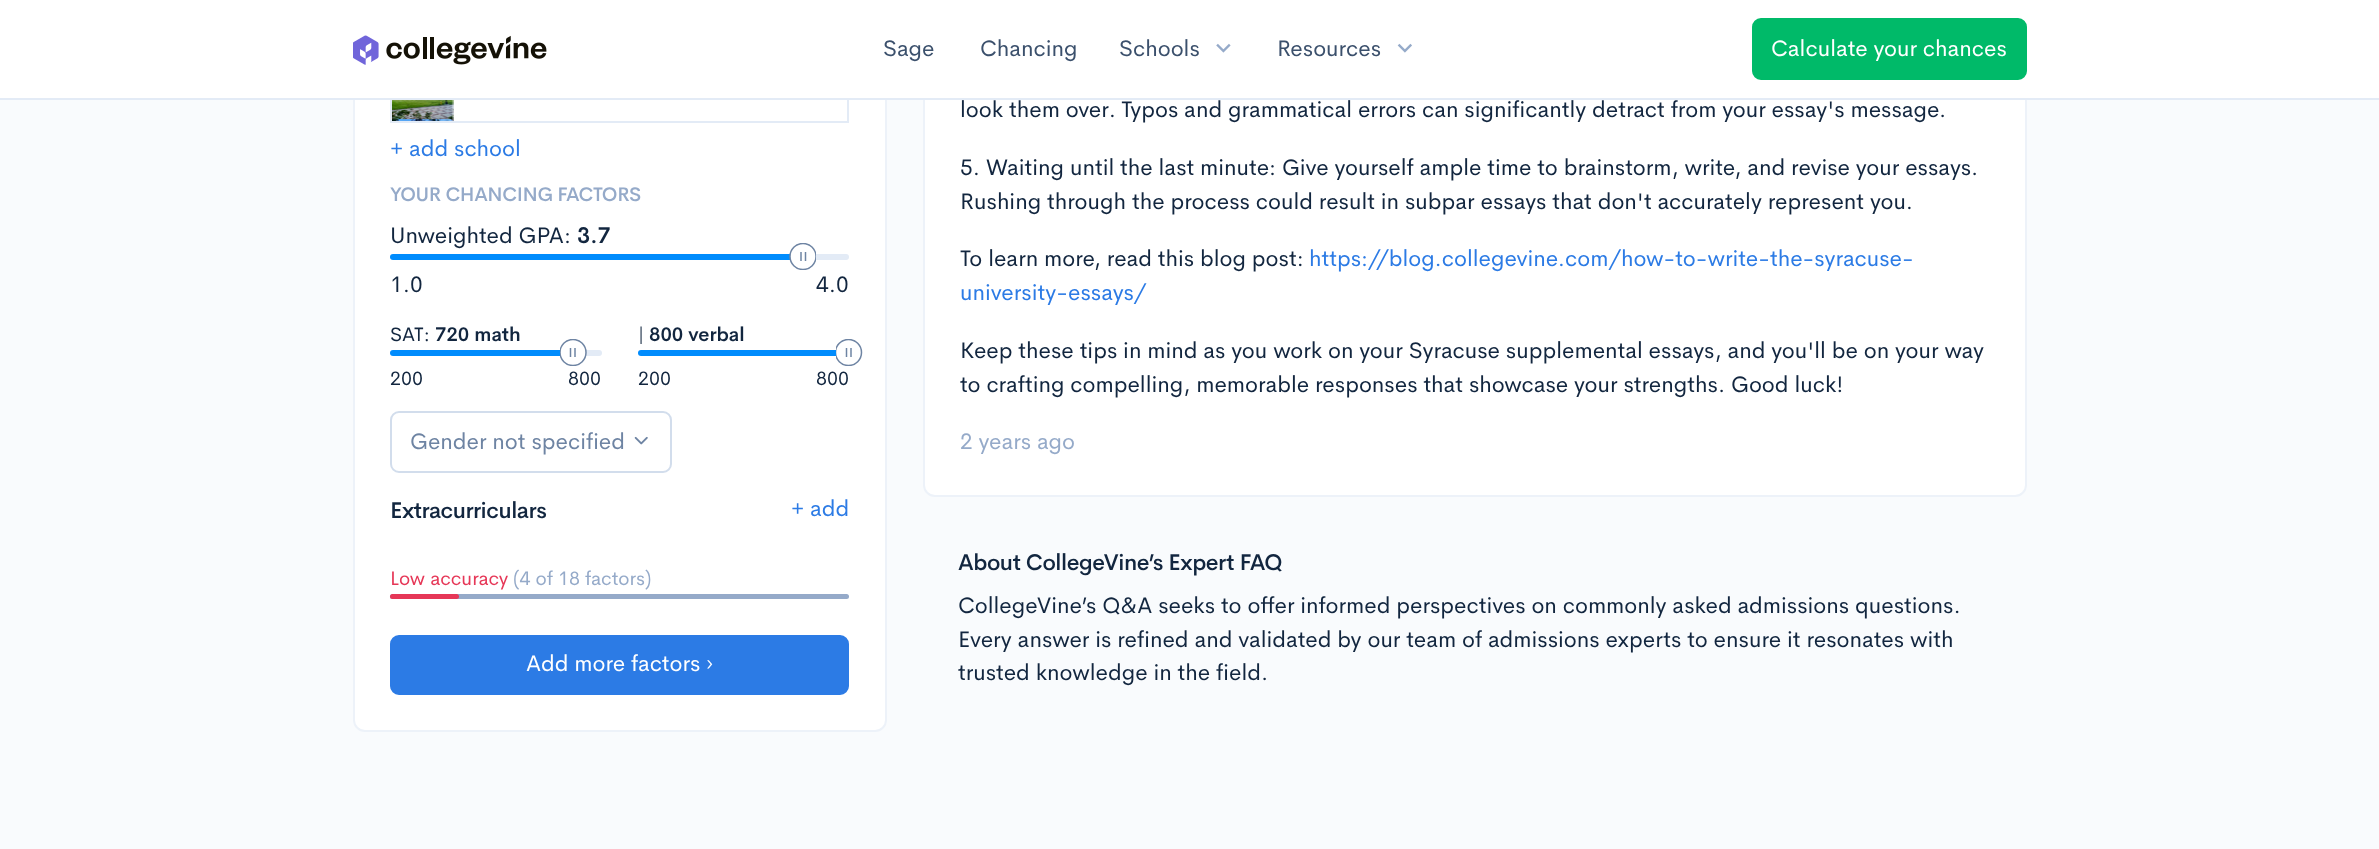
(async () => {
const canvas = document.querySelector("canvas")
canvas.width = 2379
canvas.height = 849
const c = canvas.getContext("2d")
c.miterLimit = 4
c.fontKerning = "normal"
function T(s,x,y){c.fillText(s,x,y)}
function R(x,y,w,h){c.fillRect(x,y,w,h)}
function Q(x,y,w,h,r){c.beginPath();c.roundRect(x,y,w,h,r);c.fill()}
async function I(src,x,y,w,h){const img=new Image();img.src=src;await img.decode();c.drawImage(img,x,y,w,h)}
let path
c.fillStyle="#f9fbfd"
R(0,0,2379,849)
c.fillStyle="#fff"
c.beginPath()
c.roundRect(354,-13,532,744,11)
c.fill()
c.strokeStyle="#edf2f9"
c.lineWidth=2
c.stroke()
c.strokeStyle="#e3ebf6"
c.strokeRect(391,49,457,73)
c.beginPath()
c.roundRect(924,-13,1102,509,11)
c.fill()
c.strokeStyle="#edf2f9"
c.stroke()
R(0,0,2379,98)
c.fillStyle="#e3ebf6"
R(0,98,2379,2)
await I("1.png",353,35,194,30)
c.font="22.5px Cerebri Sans"
c.fillStyle="#3b506c"
T("Sage",883,56)
T("Chancing",980,56)
T("Schools",1119,56)
await I("2.png",1216,43,15,10)
T("Resources",1277,56)
await I("3.png",1397,43,15,10)
c.fillStyle="#00ba69"
c.beginPath()
c.roundRect(1753,19,273,60,8)
c.fill()
c.strokeStyle="#00ba69"
c.stroke()
c.fillStyle="#fff"
T("Calculate your chances",1771,56)
await I("4.png",392,100,62,21)
c.fillStyle="#2c7be5"
T("+ add school",390,156)
c.letterSpacing="-0.4px"
c.font="500 19.5px Cerebri Sans"
c.fillStyle="#95aac9"
T("YOUR CHANCING FACTORS",390,201)
c.letterSpacing="0px"
c.font="22.5px Cerebri Sans"
c.fillStyle="#12263f"
T("Unweighted GPA:",390,243)
c.font="600 22.5px Cerebri Sans"
T("3.7",577,243)
c.fillStyle="#008cfd"
c.beginPath()
c.roundRect(390,254,413,6,[3,0,0,3])
c.fill()
c.fillStyle="#e3ebf6"
c.beginPath()
c.roundRect(803,254,46,6,[0,3,3,0])
c.fill()
c.fillStyle="#fff"
c.beginPath()
c.arc(803,256.5,13,0,7)
c.fill()
c.save()
c.beginPath()
c.rect(789,243,27,27)
c.clip()
c.beginPath()
c.arc(803,256.5,13,0,7)
c.strokeStyle="#6e84a3"
c.lineWidth=1.5
c.stroke()
c.restore()
c.fillStyle="#92a3ba"
R(800,252,2,9)
path = new Path2D("M805.5 252v9")
c.strokeStyle="#6e84a3"
c.lineWidth=1.5
c.stroke(path)
c.font="22.5px Cerebri Sans"
c.fillStyle="#12263f"
T("1.0",390,292)
T("4.0",816,292)
c.font="19.5px Cerebri Sans"
T("SAT:",390,341)
c.font="600 19.5px Cerebri Sans"
T("720 math",435,341)
c.fillStyle="#008cfd"
c.beginPath()
c.roundRect(390,350,183,6,[3,0,0,3])
c.fill()
c.fillStyle="#e3ebf6"
c.beginPath()
c.roundRect(573,350,29,6,[0,3,3,0])
c.fill()
c.fillStyle="#fff"
c.beginPath()
c.arc(573,352.5,13,0,7)
c.fill()
c.save()
c.beginPath()
c.rect(560,339,27,27)
c.clip()
c.beginPath()
c.arc(573,352.5,13,0,7)
c.stroke()
c.restore()
path = new Path2D("M570.5 348v9")
c.stroke(path)
c.fillStyle="#92a3ba"
R(574,348,2,9)
c.font="19.5px Cerebri Sans"
c.fillStyle="#12263f"
T("200",390,385)
T("800",568,385)
T("|",638,341)
c.font="600 19.5px Cerebri Sans"
T("800 verbal",649,341)
c.fillStyle="#008cfd"
Q(638,350,211,6,3)
c.save()
c.beginPath()
c.rect(836,339,27,27)
c.clip()
c.fillStyle="#fff"
c.beginPath()
c.arc(848.5,352.5,13,0,7)
c.fill()
c.stroke()
c.restore()
path = new Path2D("M846.5 348v9")
c.stroke(path)
c.fillStyle="#92a3ba"
R(850,348,2,9)
c.font="19.5px Cerebri Sans"
c.fillStyle="#12263f"
T("200",638,385)
T("800",816,385)
c.beginPath()
c.roundRect(391,412,280,60,8)
c.strokeStyle="#d2ddec"
c.lineWidth=2
c.stroke()
c.font="22.5px Cerebri Sans"
c.fillStyle="#6e84a3"
T("Gender not specified",410,449)
await I("5.png",634,436,14,9)
c.letterSpacing="-0.45px"
c.font="500 22.5px Cerebri Sans"
c.fillStyle="#12263f"
T("Extracurriculars",390,518)
c.letterSpacing="0px"
c.font="22.5px Cerebri Sans"
c.fillStyle="#2c7be5"
T("+ add",791,516)
c.font="19.5px Cerebri Sans"
c.fillStyle="#e63757"
T("Low accuracy",390,585)
c.fillStyle="#95aac9"
T("(4 of 18 factors)",513,585)
Q(390,594,459,5,2.5)
c.fillStyle="#e63757"
Q(390,594,69,5,2.5)
c.fillStyle="#2c7be5"
c.beginPath()
c.roundRect(391,636,457,58,8)
c.fill()
c.strokeStyle="#2c7be5"
c.stroke()
c.font="22.5px Cerebri Sans"
c.fillStyle="#fff"
T("Add more factors ›",526,671)
c.fillStyle="#12263f"
T("look them over. Typos and grammatical errors can significantly detract from your essay's message.",960,117)
T("5. Waiting until the last minute: Give yourself ample time to brainstorm, write, and revise your essays.",960,175)
T("Rushing through the process could result in subpar essays that don't accurately represent you.",960,209)
T("To learn more, read this blog post:",960,266)
c.fillStyle="#2c7be5"
T("https://blog.collegevine.com/how-to-write-the-syracuse-",1309,266)
T("university-essays/",960,300)
c.fillStyle="#12263f"
T("Keep these tips in mind as you work on your Syracuse supplemental essays, and you'll be on your way",960,358)
T("to crafting compelling, memorable responses that showcase your strengths. Good luck!",960,392)
c.fillStyle="#95aac9"
T("2 years ago",960,449)
c.letterSpacing="-0.45px"
c.font="500 22.5px Cerebri Sans"
c.fillStyle="#12263f"
T("About CollegeVine’s Expert FAQ",958,570)
c.letterSpacing="0px"
c.font="22.5px Cerebri Sans"
T("CollegeVine’s Q&A seeks to offer informed perspectives on commonly asked admissions questions.",958,613)
T("Every answer is refined and validated by our team of admissions experts to ensure it resonates with",958,647)
T("trusted knowledge in the field.",958,680)
})()
